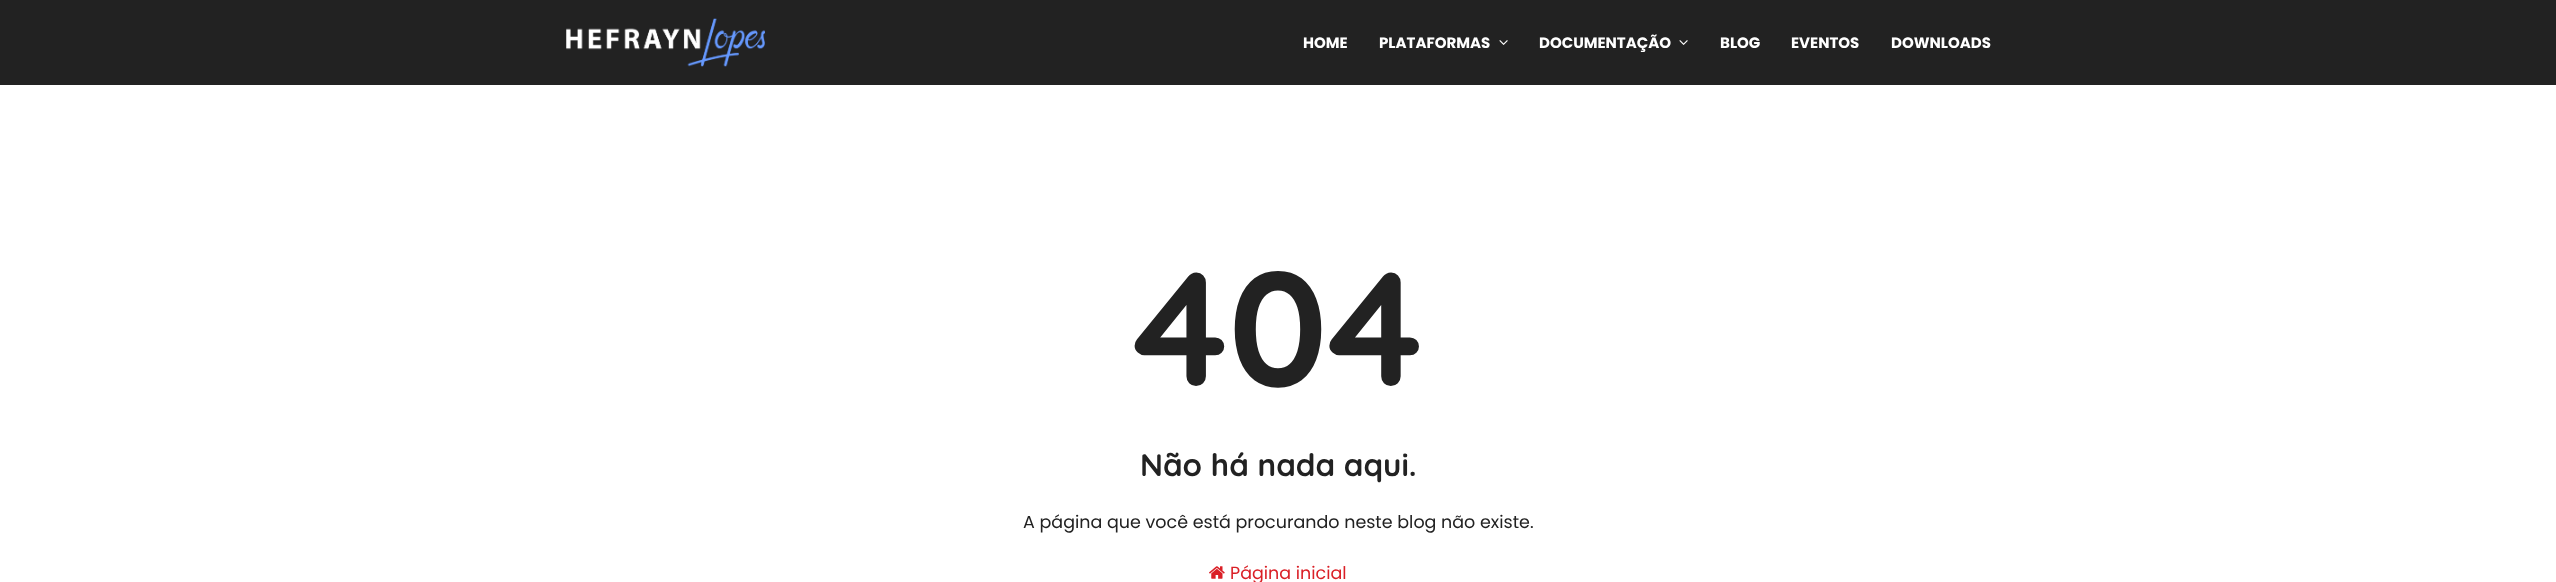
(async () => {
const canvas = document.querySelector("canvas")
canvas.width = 2556
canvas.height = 582
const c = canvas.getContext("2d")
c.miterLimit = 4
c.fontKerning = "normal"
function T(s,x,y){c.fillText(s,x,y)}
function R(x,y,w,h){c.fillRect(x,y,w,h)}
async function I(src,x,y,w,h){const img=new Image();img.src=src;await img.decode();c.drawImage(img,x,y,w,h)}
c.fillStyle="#fff"
R(0,0,2556,582)
c.fillStyle="#222"
R(0,0,2556,85)
await I("1.png",566,18,199,49)
c.font="bold 15px Poppins"
c.fillStyle="#fff"
T("HOME",1303,48)
T("PLATAFORMAS",1379,48)
await I("2.png",1499,40,9,5)
T("DOCUMENTAÇÃO",1539,48)
await I("2.png",1679,40,9,5)
T("BLOG",1720,48)
T("EVENTOS",1791,48)
T("DOWNLOADS",1891,48)
c.font="bold 162px Quicksand"
c.fillStyle="#222"
T("404",1133,386)
c.font="bold 31.25px Quicksand"
T("Não há nada aqui.",1140,476)
c.font="17.5px Poppins"
T("A página que você está procurando neste blog não existe.",1023,528)
await I("3.png",1209,566,16,13)
c.fillStyle="#da1f26"
T("Página inicial",1230,579)
})()
